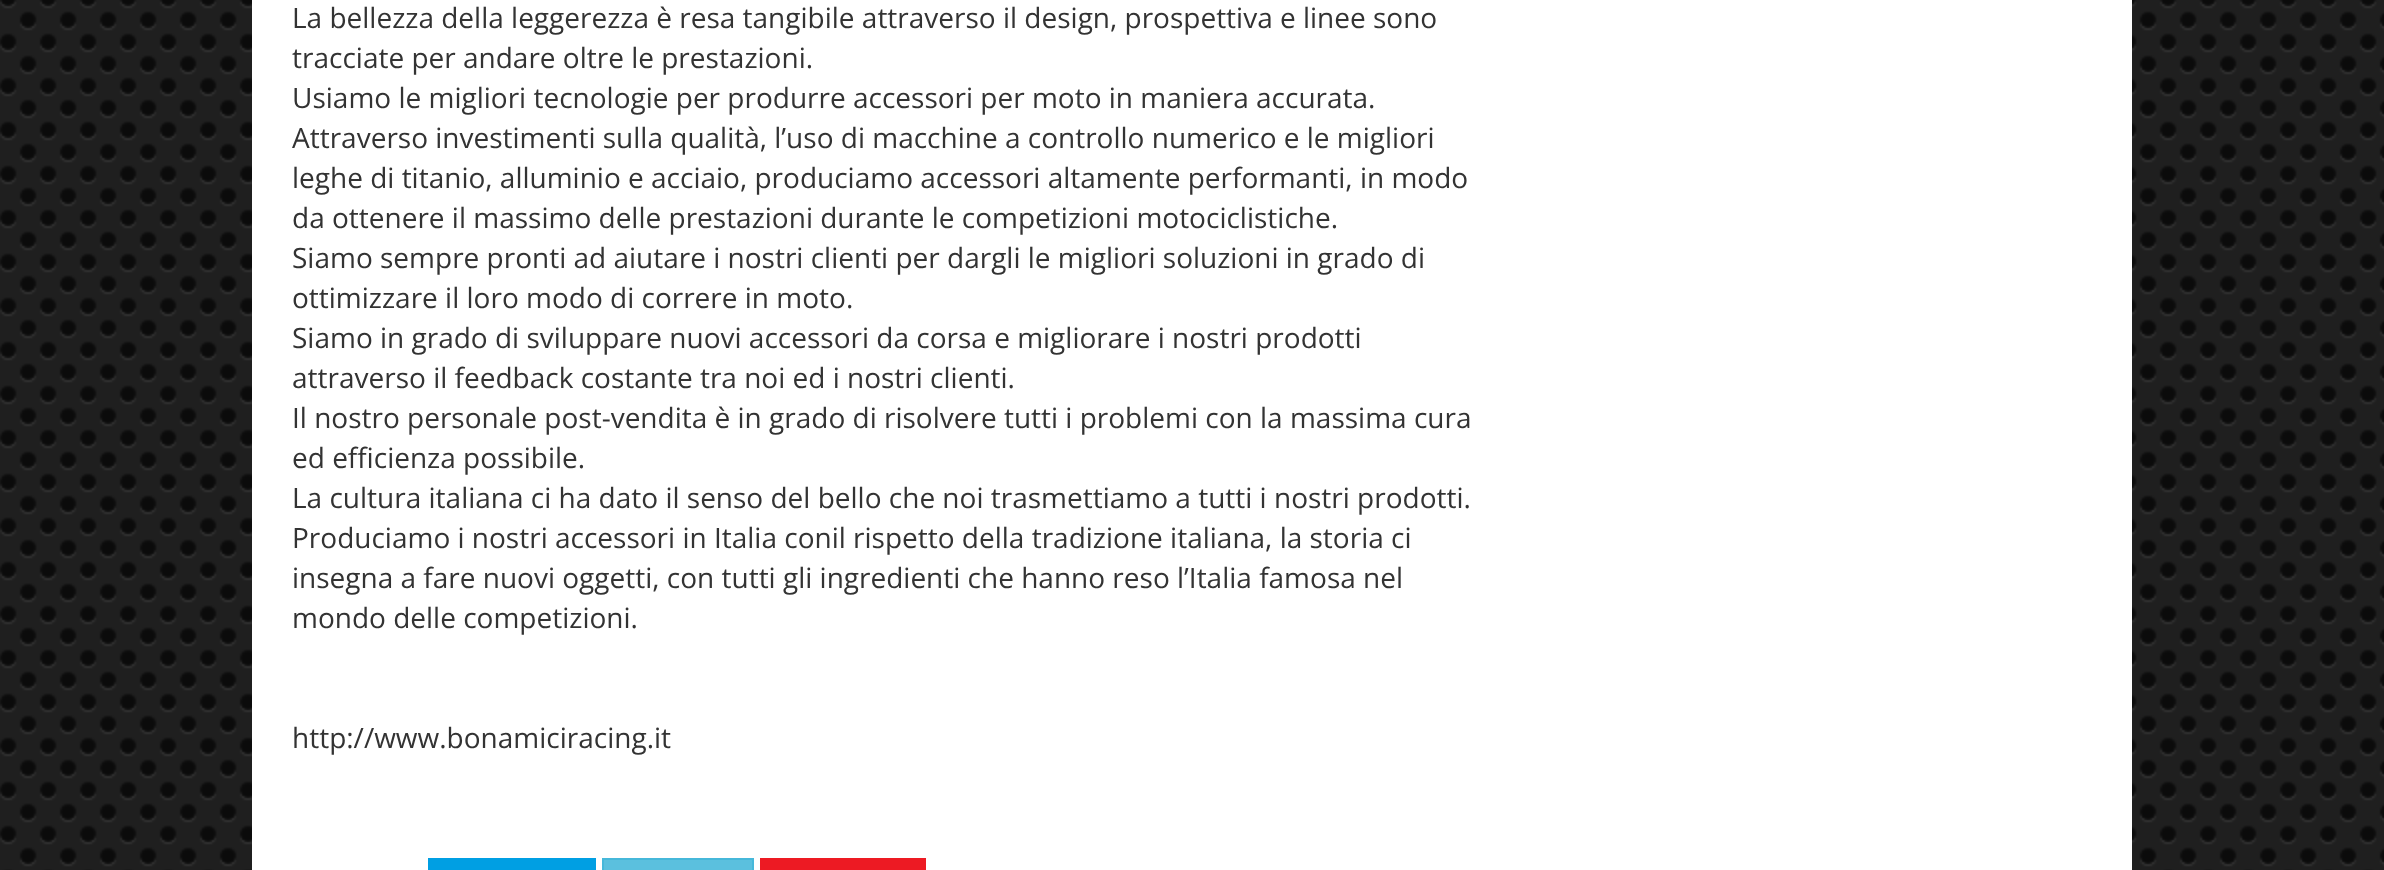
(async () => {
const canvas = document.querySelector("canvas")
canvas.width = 2384
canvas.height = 870
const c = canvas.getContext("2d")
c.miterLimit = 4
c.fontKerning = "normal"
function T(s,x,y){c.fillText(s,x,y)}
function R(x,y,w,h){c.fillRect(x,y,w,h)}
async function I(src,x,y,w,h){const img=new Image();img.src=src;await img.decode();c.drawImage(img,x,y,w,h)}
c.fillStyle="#333"
R(0,0,2384,870)
await I("1.png",0,0,2384,870)
c.fillStyle="#fff"
R(252,0,1880,870)
c.font="28px Open Sans"
c.fillStyle="#333"
T("La bellezza della leggerezza è resa tangibile attraverso il design, prospettiva e linee sono",292,28)
T("tracciate per andare oltre le prestazioni.",292,68)
T("Usiamo le migliori tecnologie per produrre accessori per moto in maniera accurata.",292,108)
T("Attraverso investimenti sulla qualità, l’uso di macchine a controllo numerico e le migliori",292,148)
T("leghe di titanio, alluminio e acciaio, produciamo accessori altamente performanti, in modo",292,188)
T("da ottenere il massimo delle prestazioni durante le competizioni motociclistiche.",292,228)
T("Siamo sempre pronti ad aiutare i nostri clienti per dargli le migliori soluzioni in grado di",292,268)
T("ottimizzare il loro modo di correre in moto.",292,308)
T("Siamo in grado di sviluppare nuovi accessori da corsa e migliorare i nostri prodotti",292,348)
T("attraverso il feedback costante tra noi ed i nostri clienti.",292,388)
T("Il nostro personale post-vendita è in grado di risolvere tutti i problemi con la massima cura",292,428)
T("ed efficienza possibile.",292,468)
T("La cultura italiana ci ha dato il senso del bello che noi trasmettiamo a tutti i nostri prodotti.",292,508)
T("Produciamo i nostri accessori in Italia conil rispetto della tradizione italiana, la storia ci",292,548)
T("insegna a fare nuovi oggetti, con tutti gli ingredienti che hanno reso l’Italia famosa nel",292,588)
T("mondo delle competizioni.",292,628)
T("http://www.bonamiciracing.it",292,748)
c.fillStyle="#009fe3"
R(428,858,168,12)
c.fillStyle="#5bc0de"
c.beginPath()
c.rect(603,859,150,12)
c.fill()
c.strokeStyle="#46b8da"
c.lineWidth=2
c.stroke()
c.fillStyle="#ed1a23"
R(760,858,166,12)
})()
